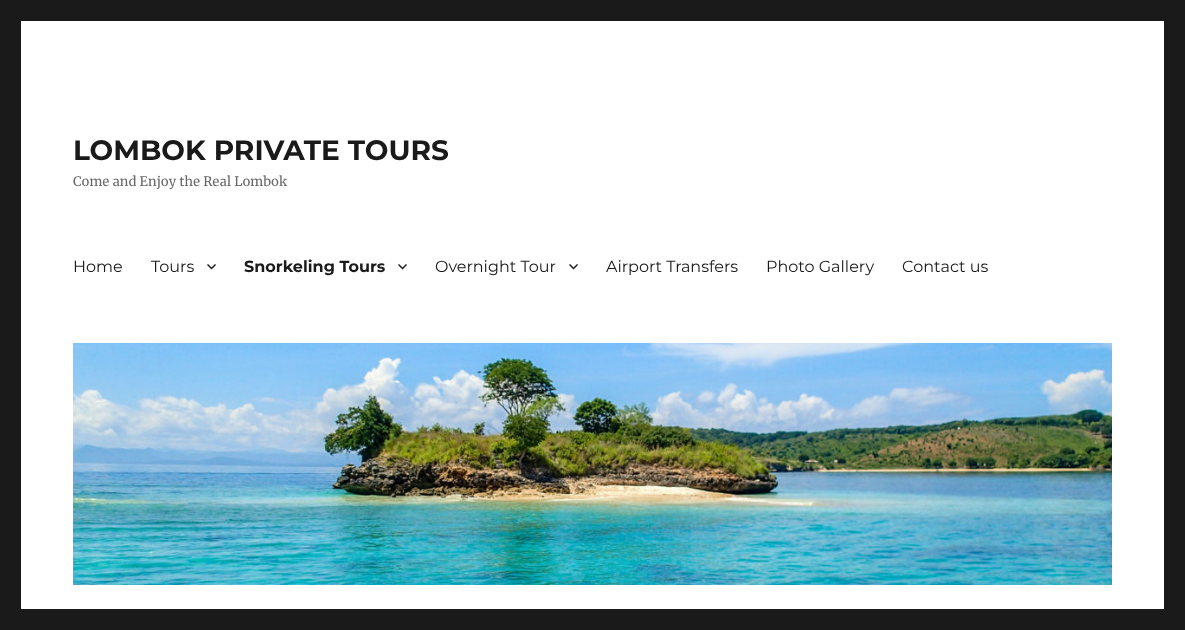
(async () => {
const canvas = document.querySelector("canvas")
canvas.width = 1185
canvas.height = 630
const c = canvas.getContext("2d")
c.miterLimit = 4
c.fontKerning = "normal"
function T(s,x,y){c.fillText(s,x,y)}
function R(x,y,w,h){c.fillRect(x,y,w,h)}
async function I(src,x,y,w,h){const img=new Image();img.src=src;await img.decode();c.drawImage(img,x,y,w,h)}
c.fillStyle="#1a1a1a"
R(0,0,1185,630)
c.fillStyle="#fff"
R(21,21,1143,588)
c.font="100 28px Montserrat"
c.fillStyle="#1a1a1a"
T("LOMBOK PRIVATE TOURS",73,160)
c.save()
c.beginPath()
c.rect(73,133,376,56)
c.clip()
c.font="13px Merriweather"
c.fillStyle="#686868"
T("Come and Enjoy the Real Lombok",73,186)
c.restore()
c.font="100 16px 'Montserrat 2'"
T("Home",73,272)
T("Tours",151,272)
await I("1.png",207,264,9,6)
c.font="100 16px Montserrat"
T("Snorkeling Tours",244,272)
await I("1.png",398,264,9,6)
c.font="100 16px 'Montserrat 2'"
T("Overnight Tour",435,272)
await I("1.png",569,264,9,6)
T("Airport Transfers",606,272)
T("Photo Gallery",766,272)
T("Contact us",902,272)
await I("2.png",73,343,1039,242)
})()
